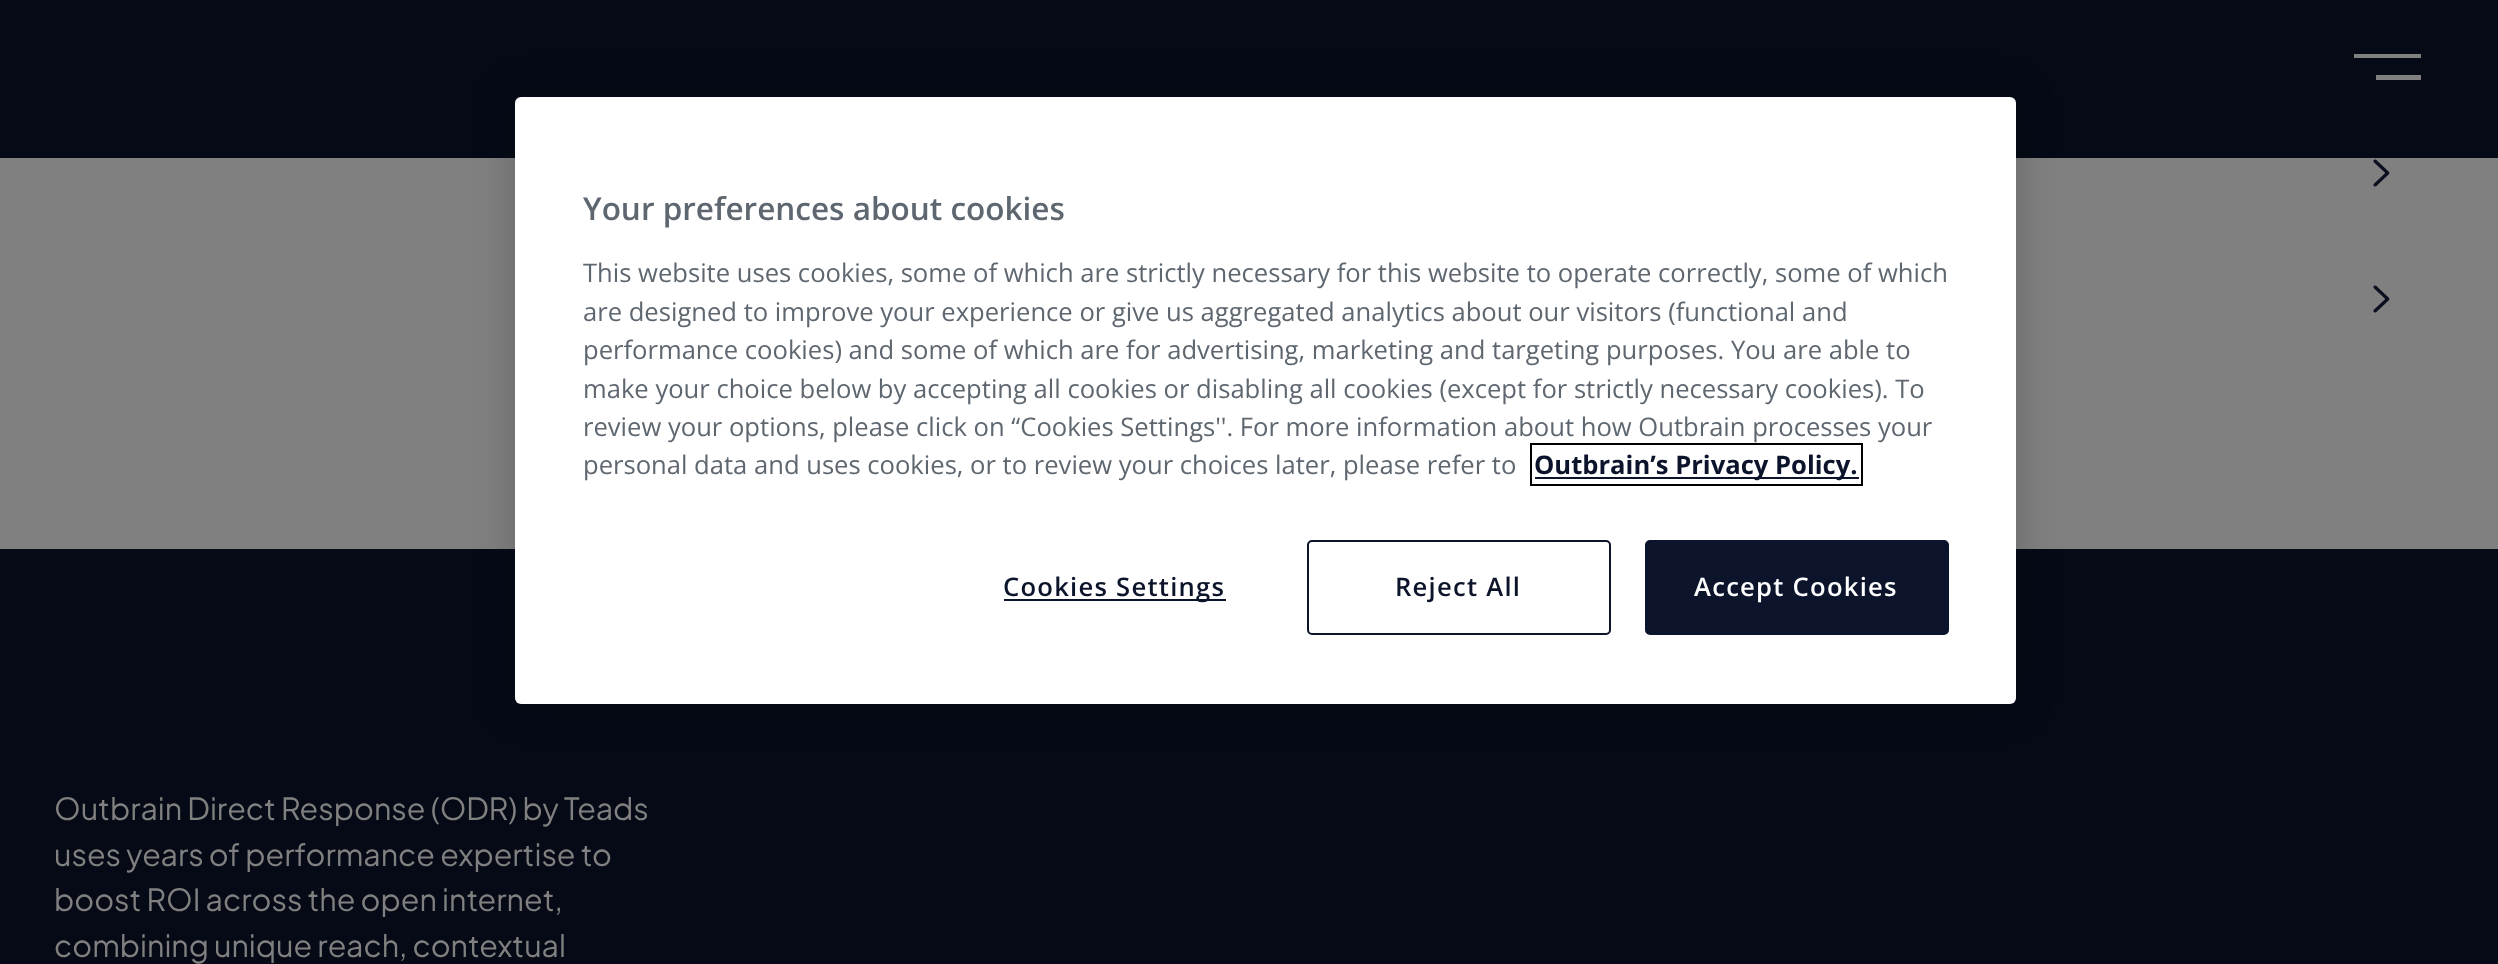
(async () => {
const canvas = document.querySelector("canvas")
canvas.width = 2498
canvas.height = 964
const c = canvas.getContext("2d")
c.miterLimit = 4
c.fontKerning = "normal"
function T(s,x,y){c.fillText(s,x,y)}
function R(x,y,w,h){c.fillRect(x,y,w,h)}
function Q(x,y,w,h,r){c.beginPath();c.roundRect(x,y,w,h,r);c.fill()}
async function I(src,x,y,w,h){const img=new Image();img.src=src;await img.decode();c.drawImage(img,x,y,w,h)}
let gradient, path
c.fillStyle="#808080"
R(0,0,2498,964)
c.fillStyle="#060a16"
R(0,0,2498,158)
c.fillStyle="#808080"
path = new Path2D("M2354 58h67v-4h-67zm22 22h45v-5h-45z")
c.fill(path)
gradient = c.createLinearGradient(1246,543,1255,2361)
gradient.addColorStop(.38,"#060a16")
gradient.addColorStop(.68,"#1e0a34")
gradient.addColorStop(1,"#80472d")
c.fillStyle = gradient
R(0,549,2498,415)
c.fillStyle="#00000033"
c.filter="blur(20px)"
c.beginPath()
c.roundRect(515,97,1501,607,6)
c.fill()
c.filter="none"
c.fillStyle="#fff"
Q(515,97,1501,607,6)
c.font="600 31.5px Open Sans"
c.fillStyle="#5e6770"
T("Your preferences about cookies",583,220)
c.font="25.6px Open Sans"
T("This website uses cookies, some of which are strictly necessary for this website to operate correctly, some of which",583,282)
T("are designed to improve your experience or give us aggregated analytics about our visitors (functional and",583,321)
T("performance cookies) and some of which are for advertising, marketing and targeting purposes. You are able to",583,359)
T("make your choice below by accepting all cookies or disabling all cookies (except for strictly necessary cookies). To",583,398)
T("review your options, please click on “Cookies Settings''. For more information about how Outbrain processes your",583,436)
T("personal data and uses cookies, or to review your choices later, please refer to",583,474)
c.fillStyle="#0c142b"
R(1535,477,324,2)
c.font="bold 25.6px Open Sans"
T("Outbrain’s Privacy Policy.",1534,474)
c.strokeStyle="#000"
c.lineWidth=2
c.strokeRect(1531,444,331,41)
R(1004,599,222,2)
c.letterSpacing="1.25px"
c.font="600 25.6px Open Sans"
T("Cookies Settings",1003,596)
c.beginPath()
c.roundRect(1308,541,302,93,4)
c.strokeStyle="#0c142b"
c.stroke()
T("Reject All",1395,596)
c.beginPath()
c.roundRect(1646,541,302,93,4)
c.fill()
c.stroke()
c.fillStyle="#fff"
T("Accept Cookies",1694,596)
await I("1.png",2373,159,17,28)
await I("1.png",2373,285,17,28)
c.letterSpacing="0px"
c.font="30.4px Plus Jakarta Sans"
c.fillStyle="#808080"
T("Outbrain Direct Response (ODR) by Teads",54,820)
T("uses years of performance expertise to",54,866)
T("boost ROI across the open internet,",54,911)
T("combining unique reach, contextual",54,957)
})()
